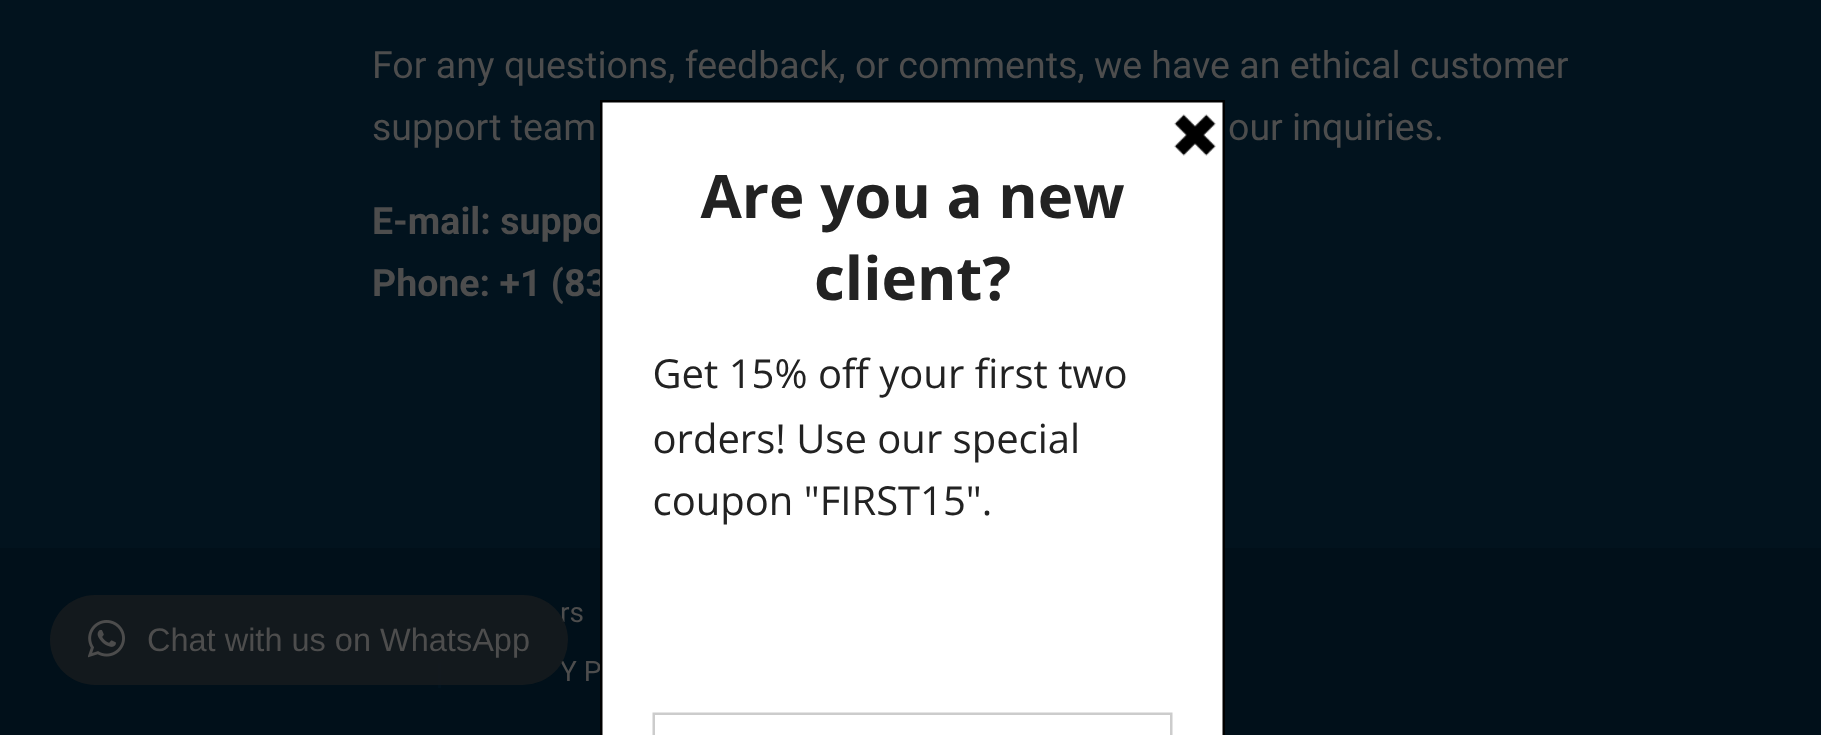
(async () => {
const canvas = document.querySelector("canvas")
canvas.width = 1821
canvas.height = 735
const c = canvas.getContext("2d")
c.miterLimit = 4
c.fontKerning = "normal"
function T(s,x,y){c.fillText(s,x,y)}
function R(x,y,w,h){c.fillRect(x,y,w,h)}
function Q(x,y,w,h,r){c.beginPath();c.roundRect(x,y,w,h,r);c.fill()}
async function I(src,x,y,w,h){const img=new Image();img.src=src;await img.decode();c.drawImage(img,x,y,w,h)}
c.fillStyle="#02131e"
R(0,0,1821,735)
c.font="37.5px Roboto"
c.fillStyle="#4d4d4d"
T("For any questions, feedback, or comments, we have an ethical customer",372,78)
T("support team",372,140)
T("our inquiries.",1228,140)
c.font="bold 37.5px Roboto"
T("E-mail: suppo",372,234)
T("Phone: +1 (83",372,296)
c.fillStyle="#01101a"
R(0,548,1821,187)
c.font="28px Roboto"
c.fillStyle="#4d4d4d"
T("rs",560,622)
c.fillStyle="#02131e"
R(438,663,3,25)
c.fillStyle="#4d4d4d"
T("Y P",560,681)
c.fillStyle="#151b1ee6"
Q(50,595,518,90,45)
await I("1.png",88,620,37,38)
c.font="32.5px Liberation Sans"
c.fillStyle="#4d4d4d"
T("Chat with us on WhatsApp",147,651)
await I("2.png",600,100,625,635)
})()
